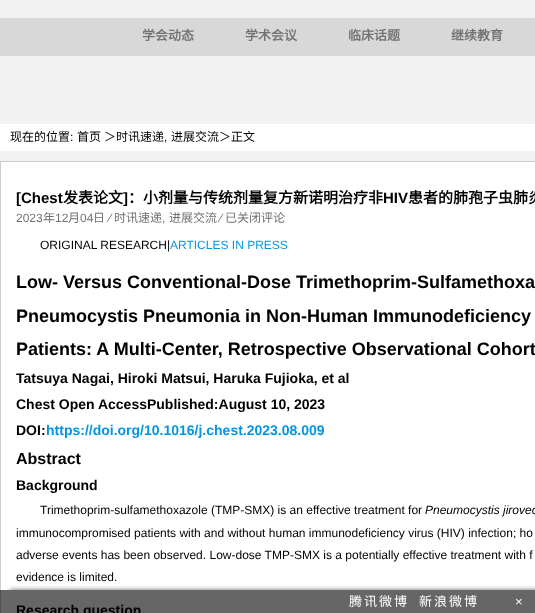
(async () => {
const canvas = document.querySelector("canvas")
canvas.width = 535
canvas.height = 613
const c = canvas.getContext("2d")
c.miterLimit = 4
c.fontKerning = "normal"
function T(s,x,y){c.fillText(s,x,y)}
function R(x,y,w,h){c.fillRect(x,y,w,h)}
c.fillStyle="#f2f2f2"
R(0,0,535,613)
c.fillStyle="#d8d8d8"
R(0,18,535,38)
c.font="bold 13px Noto Sans CJK SC"
c.fillStyle="#717171"
T("学会动态",142,40)
T("学术会议",245,40)
T("临床话题",348,40)
T("继续教育",451,40)
c.fillStyle="#fff"
R(0,124,535,27)
c.font="12px Noto Sans CJK SC"
c.fillStyle="#000"
T("现在的位置",10,141)
c.font="12px Liberation Sans"
T(":",70,141)
c.font="12px Noto Sans CJK SC"
T("首页",77,141)
T("＞时讯速递",104,141)
c.font="12px Liberation Sans"
T(",",164,141)
c.font="12px Noto Sans CJK SC"
T("进展交流＞正文",171,141)
c.fillStyle="#fff"
R(1,162,534,428)
c.fillStyle="#666"
R(1,590,534,23)
c.fillStyle="#ccc"
R(0,161,535,1)
R(0,161,1,429)
c.fillStyle="#525252"
R(0,590,1,23)
c.font="bold 15px Liberation Sans"
c.fillStyle="#000"
T("[Chest",16,203)
c.font="bold 15px Noto Sans CJK SC"
T("发表论文",63,203)
c.font="bold 15px Liberation Sans"
T("]",123,203)
c.font="bold 15px Noto Sans CJK SC"
T("：小剂量与传统剂量复方新诺明治疗非",128,203)
c.font="bold 15px Liberation Sans"
T("HIV",383,203)
c.font="bold 15px Noto Sans CJK SC"
T("患者的肺孢子虫肺炎",408,203)
c.font="12px Liberation Sans"
c.fillStyle="#717171"
T("2023",16,222)
c.font="12px Noto Sans CJK SC"
T("年",43,222)
c.font="12px Liberation Sans"
T("12",55,222)
c.font="12px Noto Sans CJK SC"
T("月",68,222)
c.font="12px Liberation Sans"
T("04",80,222)
c.font="12px Noto Sans CJK SC"
T("日",93,222)
c.font="12px Liberation Sans"
T("⁄",109,222)
c.font="12px Noto Sans CJK SC"
T("时讯速递",114,222)
c.font="12px Liberation Sans"
T(",",162,222)
c.font="12px Noto Sans CJK SC"
T("进展交流",169,222)
c.font="12px Liberation Sans"
T("⁄",220,222)
c.font="12px Noto Sans CJK SC"
T("已关闭评论",225,222)
c.font="12px Liberation Sans"
c.fillStyle="#000"
T("ORIGINAL RESEARCH|",40,249)
c.fillStyle="#0196e3"
T("ARTICLES IN PRESS",170,249)
c.font="bold 18px Liberation Sans"
c.fillStyle="#000"
T("Low- Versus Conventional-Dose Trimethoprim-Sulfamethoxa",16,288)
T("Pneumocystis Pneumonia in Non-Human Immunodeficiency",16,322)
T("Patients: A Multi-Center, Retrospective Observational Cohort",16,355)
c.font="bold 14px Liberation Sans"
T("Tatsuya Nagai, Hiroki Matsui, Haruka Fujioka, et al",16,383)
T("Chest Open AccessPublished:August 10, 2023",16,409)
T("DOI:",16,435)
c.fillStyle="#0196e3"
T("https://doi.org/10.1016/j.chest.2023.08.009",46,435)
c.font="bold 16px Liberation Sans"
c.fillStyle="#000"
T("Abstract",16,464)
c.font="bold 14px Liberation Sans"
T("Background",16,490)
c.font="12px Liberation Sans"
T("Trimethoprim-sulfamethoxazole (TMP-SMX) is an effective treatment for",40,514)
c.font="italic 12px Liberation Sans"
T("Pneumocystis jirovec",425,514)
c.font="12px Liberation Sans"
T("immunocompromised patients with and without human immunodeficiency virus (HIV) infection; ho",16,537)
T("adverse events has been observed. Low-dose TMP-SMX is a potentially effective treatment with f",16,559)
T("evidence is limited.",16,581)
c.font="bold 14px Liberation Sans"
T("Research question",16,615)
c.save()
c.beginPath()
c.rect(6,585,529,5)
c.clip()
c.fillStyle="#666"
c.filter="blur(2.5px)"
c.beginPath()
c.rect(10,590,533,23)
c.fill()
c.filter="none"
c.restore()
c.letterSpacing="2px"
c.font="13px Noto Sans CJK SC"
c.fillStyle="#fff"
T("腾讯微博",349,606)
T("新浪微博",419,606)
c.font="13px Liberation Sans"
T("×",515,606)
})()
